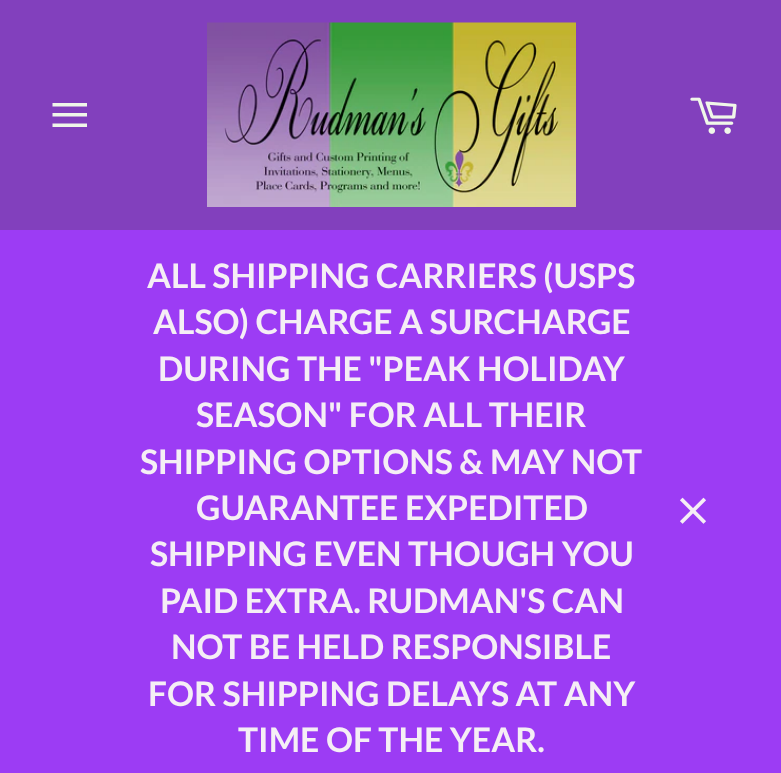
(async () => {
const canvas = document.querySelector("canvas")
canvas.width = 781
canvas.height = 773
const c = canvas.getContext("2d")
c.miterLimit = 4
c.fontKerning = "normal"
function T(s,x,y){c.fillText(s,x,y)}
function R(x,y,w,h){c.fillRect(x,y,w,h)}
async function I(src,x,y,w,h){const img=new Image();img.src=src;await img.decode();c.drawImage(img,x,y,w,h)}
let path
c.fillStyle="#8240bd"
R(0,0,781,773)
c.fillStyle="#f0f7e9"
path = new Path2D("M52.5 113h34.5v3.5h-34.5zm0-10h34.5v3.5h-34.5zm0 20.5h34.5v3.5h-34.5z")
c.fill(path)
await I("1.png",207,22,369,185)
await I("2.png",690,97,47,37)
c.fillStyle="#9c3cf4"
R(0,230,781,543)
c.font="bold 33.75px Lato"
c.fillStyle="#f5eef5"
T("ALL SHIPPING CARRIERS (USPS",147,288)
T("ALSO) CHARGE A SURCHARGE",153,334)
T("DURING THE \"PEAK HOLIDAY",158,381)
T("SEASON\" FOR ALL THEIR",196,427)
T("SHIPPING OPTIONS & MAY NOT",140,474)
T("GUARANTEE EXPEDITED",196,520)
T("SHIPPING EVEN THOUGH YOU",150,566)
T("PAID EXTRA. RUDMAN'S CAN",160,613)
T("NOT BE HELD RESPONSIBLE",171,659)
T("FOR SHIPPING DELAYS AT ANY",148,706)
T("TIME OF THE YEAR.",238,752)
await I("3.png",680,497,26,27)
})()
